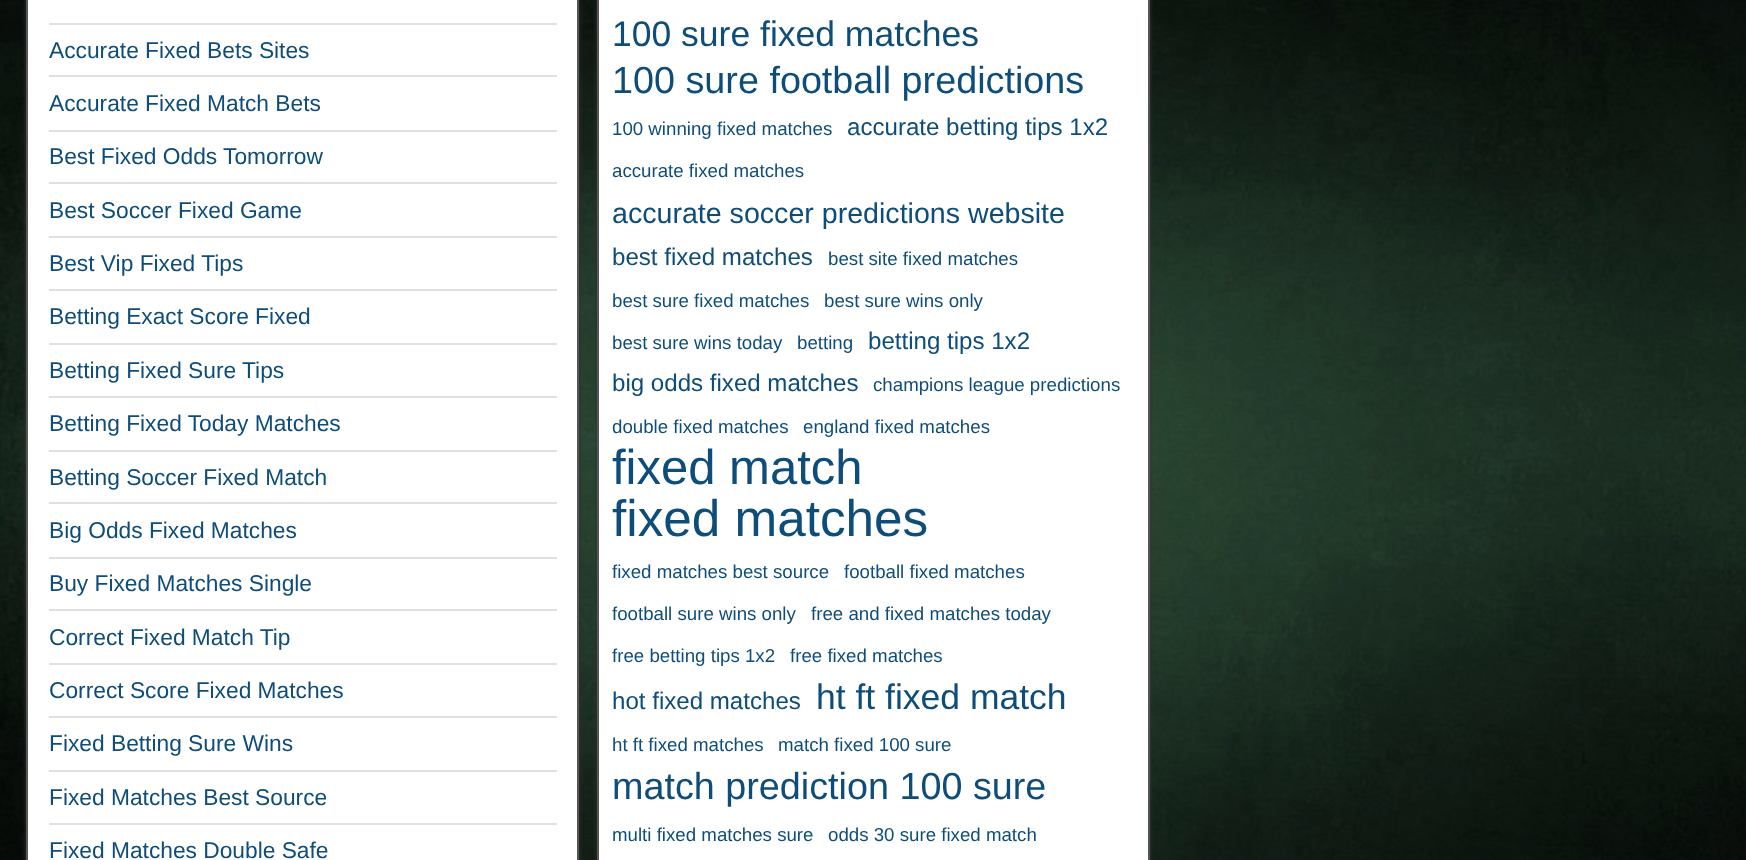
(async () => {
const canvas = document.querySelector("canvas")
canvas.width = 1746
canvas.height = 860
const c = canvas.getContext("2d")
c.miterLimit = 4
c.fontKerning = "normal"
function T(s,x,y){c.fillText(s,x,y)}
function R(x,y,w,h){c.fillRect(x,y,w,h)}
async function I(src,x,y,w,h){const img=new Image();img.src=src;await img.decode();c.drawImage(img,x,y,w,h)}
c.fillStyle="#fff"
R(0,0,1746,860)
await I("1.png",0,0,1746,860)
c.fillStyle="#333"
c.filter="blur(2px)"
c.beginPath()
c.rect(26,-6,553,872)
c.fill()
c.filter="none"
c.fillStyle="#fff"
c.beginPath()
c.rect(27,-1,551,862)
c.fill()
c.strokeStyle="#555"
c.lineWidth=2
c.stroke()
c.fillStyle="#e0e0e0"
R(49,23,508,2)
R(49,75,508,2)
c.font="22.75px Liberation Sans"
c.fillStyle="#0e4d7a"
T("Accurate Fixed Bets Sites",49,58)
c.fillStyle="#e0e0e0"
R(49,130,508,2)
c.fillStyle="#0e4d7a"
T("Accurate Fixed Match Bets",49,111)
c.fillStyle="#e0e0e0"
R(49,182,508,2)
c.fillStyle="#0e4d7a"
T("Best Fixed Odds Tomorrow",49,164)
c.fillStyle="#e0e0e0"
R(49,236,508,2)
c.fillStyle="#0e4d7a"
T("Best Soccer Fixed Game",49,218)
c.fillStyle="#e0e0e0"
R(49,289,508,2)
c.fillStyle="#0e4d7a"
T("Best Vip Fixed Tips",49,271)
c.fillStyle="#e0e0e0"
R(49,343,508,2)
c.fillStyle="#0e4d7a"
T("Betting Exact Score Fixed",49,324)
c.fillStyle="#e0e0e0"
R(49,396,508,2)
c.fillStyle="#0e4d7a"
T("Betting Fixed Sure Tips",49,378)
c.fillStyle="#e0e0e0"
R(49,450,508,2)
c.fillStyle="#0e4d7a"
T("Betting Fixed Today Matches",49,431)
c.fillStyle="#e0e0e0"
R(49,502,508,2)
c.fillStyle="#0e4d7a"
T("Betting Soccer Fixed Match",49,485)
c.fillStyle="#e0e0e0"
R(49,557,508,2)
c.fillStyle="#0e4d7a"
T("Big Odds Fixed Matches",49,538)
c.fillStyle="#e0e0e0"
R(49,609,508,2)
c.fillStyle="#0e4d7a"
T("Buy Fixed Matches Single",49,591)
c.fillStyle="#e0e0e0"
R(49,663,508,2)
c.fillStyle="#0e4d7a"
T("Correct Fixed Match Tip",49,645)
c.fillStyle="#e0e0e0"
R(49,716,508,2)
c.fillStyle="#0e4d7a"
T("Correct Score Fixed Matches",49,698)
c.fillStyle="#e0e0e0"
R(49,770,508,2)
c.fillStyle="#0e4d7a"
T("Fixed Betting Sure Wins",49,751)
c.fillStyle="#e0e0e0"
R(49,823,508,2)
c.fillStyle="#0e4d7a"
T("Fixed Matches Best Source",49,805)
T("Fixed Matches Double Safe",49,858)
c.fillStyle="#333"
c.filter="blur(2px)"
c.beginPath()
c.rect(597,-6,553,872)
c.fill()
c.filter="none"
c.fillStyle="#fff"
c.beginPath()
c.rect(598,-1,551,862)
c.fill()
c.stroke()
c.font="35.5px Liberation Sans"
c.fillStyle="#0e4d7a"
T("100 sure fixed matches",612,46)
c.font="37.75px Liberation Sans"
T("100 sure football predictions",612,93)
c.font="18.7px Liberation Sans"
T("100 winning fixed matches",612,135)
c.font="24.1px Liberation Sans"
T("accurate betting tips 1x2",847,135)
c.font="18.7px Liberation Sans"
T("accurate fixed matches",612,177)
c.font="28.6px Liberation Sans"
T("accurate soccer predictions website",612,223)
c.font="24.1px Liberation Sans"
T("best fixed matches",612,265)
c.font="18.7px Liberation Sans"
T("best site fixed matches",828,265)
T("best sure fixed matches",612,307)
T("best sure wins only",824,307)
T("best sure wins today",612,349)
T("betting",797,349)
c.font="24.1px Liberation Sans"
T("betting tips 1x2",868,349)
T("big odds fixed matches",612,391)
c.font="18.7px Liberation Sans"
T("champions league predictions",873,391)
T("double fixed matches",612,433)
T("england fixed matches",803,433)
c.font="49px Liberation Sans"
T("fixed match",612,484)
c.font="51.25px Liberation Sans"
T("fixed matches",612,536)
c.font="18.7px Liberation Sans"
T("fixed matches best source",612,578)
T("football fixed matches",844,578)
T("football sure wins only",612,620)
T("free and fixed matches today",811,620)
T("free betting tips 1x2",612,662)
T("free fixed matches",790,662)
c.font="24.1px Liberation Sans"
T("hot fixed matches",612,709)
c.font="35.5px Liberation Sans"
T("ht ft fixed match",816,709)
c.font="18.7px Liberation Sans"
T("ht ft fixed matches",612,751)
T("match fixed 100 sure",778,751)
c.font="37.75px Liberation Sans"
T("match prediction 100 sure",612,799)
c.font="18.7px Liberation Sans"
T("multi fixed matches sure",612,841)
T("odds 30 sure fixed match",828,841)
})()
